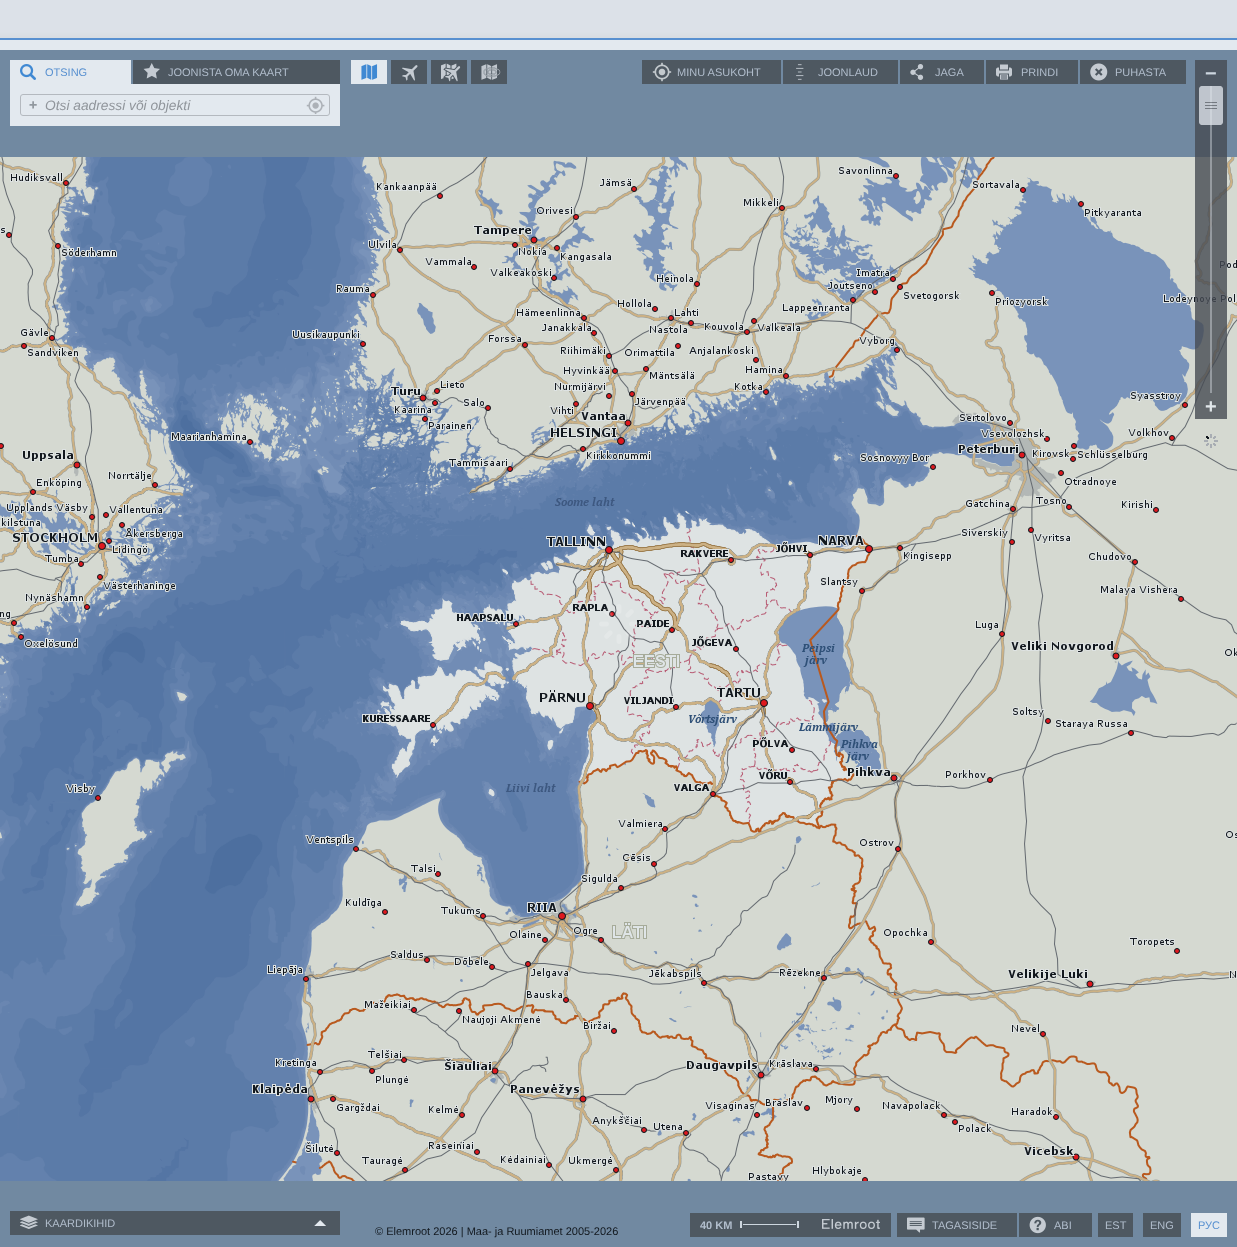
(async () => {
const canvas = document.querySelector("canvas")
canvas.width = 1237
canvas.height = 1247
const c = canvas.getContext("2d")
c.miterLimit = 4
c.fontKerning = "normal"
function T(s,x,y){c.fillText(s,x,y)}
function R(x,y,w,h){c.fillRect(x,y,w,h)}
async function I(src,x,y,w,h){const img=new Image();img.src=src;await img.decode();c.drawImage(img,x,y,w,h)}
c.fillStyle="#e3e9ef"
R(0,0,1237,1247)
await I("1.png",0,0,1237,38)
c.fillStyle="#5890d0"
R(0,38,1237,2)
c.fillStyle="#7189a1"
R(0,50,1237,1197)
c.fillStyle="#e3e9ef"
R(10,60,121,24)
await I("2.png",20,64,16,16)
c.font="11px Liberation Sans"
c.fillStyle="#5890d0"
T("OTSING",45,76)
c.fillStyle="#4e5861"
R(133,60,207,24)
await I("3.png",143,63,17,16)
c.fillStyle="#b1bdcc"
T("JOONISTA OMA KAART",168,76)
c.fillStyle="#e3e9ef"
R(10,84,330,42)
await I("4.png",29,101,8,8)
c.beginPath()
c.roundRect(20.5,94.5,309,21,2.5)
c.strokeStyle="#b4b9bf"
c.stroke()
c.font="italic 13.75px Liberation Sans"
c.fillStyle="#90959b"
T("Otsi aadressi või objekti",45,110)
await I("5.png",306,96,19,18)
c.fillStyle="#e3e9ef"
R(351,60,36,24)
await I("6.png",361,64,17,16)
c.fillStyle="#4e5861"
R(391,60,36,24)
await I("7.png",402,65,16,16)
R(431,60,36,24)
await I("8.png",441,63,20,19)
R(471,60,36,24)
await I("9.png",481,64,20,16)
R(642,60,139,24)
await I("10.png",652,62,20,20)
c.font="11px Liberation Sans"
c.fillStyle="#b1bdcc"
T("MINU ASUKOHT",677,76)
c.fillStyle="#4e5861"
R(783,60,115,24)
await I("11.png",796,64,8,16)
c.fillStyle="#b1bdcc"
T("JOONLAUD",818,76)
c.fillStyle="#4e5861"
R(900,60,84,24)
await I("12.png",910,64,14,16)
c.fillStyle="#b1bdcc"
T("JAGA",935,76)
c.fillStyle="#4e5861"
R(986,60,92,24)
await I("13.png",996,64,16,16)
c.fillStyle="#b1bdcc"
T("PRINDI",1021,76)
c.fillStyle="#4e5861"
R(1080,60,106,24)
await I("14.png",1090,63,18,18)
c.fillStyle="#b1bdcc"
T("PUHASTA",1115,76)
await I("15.png",0,157,116,256)
await I("16.png",116,157,256,256)
await I("17.png",372,157,256,256)
await I("18.png",628,157,256,256)
await I("19.png",884,157,256,256)
await I("20.png",1140,157,97,256)
await I("21.png",0,413,116,256)
await I("22.png",116,413,256,256)
await I("23.png",372,413,256,256)
await I("24.png",628,413,256,256)
await I("25.png",884,413,256,256)
await I("26.png",1140,413,97,256)
await I("27.png",0,669,116,256)
await I("28.png",116,669,256,256)
await I("29.png",372,669,256,256)
await I("30.png",628,669,256,256)
await I("31.png",884,669,256,256)
await I("32.png",1140,669,97,256)
await I("33.png",0,925,116,256)
await I("34.png",116,925,256,256)
await I("35.png",372,925,256,256)
await I("36.png",628,925,256,256)
await I("37.png",884,925,256,256)
await I("38.png",1140,925,97,256)
c.fillStyle="#464b52cc"
R(1195,60,32,359)
c.font="bold 20px Liberation Sans"
c.fillStyle="#cdd6df"
T("−",1205,80)
c.fillStyle="#e3e9ef66"
R(1210,86,2,307)
await I("39.png",1199,86,24,39)
c.fillStyle="#e0e6e9"
T("+",1205,413)
await I("40.png",1204,434,14,14)
c.fillStyle="#4e5861"
R(10,1211,330,24)
await I("41.png",20,1215,18,14)
c.font="11px Liberation Sans"
c.fillStyle="#b1bdcc"
T("KAARDIKIHID",45,1227)
await I("42.png",314,1220,12,6)
c.fillStyle="#4e5861"
R(690,1213,201,24)
c.font="bold 11px Liberation Sans"
c.fillStyle="#b1bdcc"
T("40 KM",700,1229)
c.fillStyle="#cdd6df"
R(740,1221,2,7)
R(743,1224,53,1)
R(797,1221,2,7)
await I("43.png",822,1219,58,10)
c.fillStyle="#4e5861"
R(897,1213,120,24)
await I("44.png",907,1217,18,16)
c.font="11px Liberation Sans"
c.fillStyle="#b1bdcc"
T("TAGASISIDE",932,1229)
c.fillStyle="#4e5861"
R(1019,1213,73,24)
await I("45.png",1029,1216,17,18)
c.fillStyle="#b1bdcc"
T("ABI",1054,1229)
c.fillStyle="#4e5861"
R(1098,1213,35,24)
c.fillStyle="#b1bdcc"
T("EST",1105,1229)
c.fillStyle="#4e5861"
R(1143,1213,38,24)
c.fillStyle="#b1bdcc"
T("ENG",1150,1229)
c.fillStyle="#e3e9ef"
R(1191,1213,36,24)
c.fillStyle="#5890d0"
T("РУС",1198,1229)
c.fillStyle="#12181e"
T("© Elemroot 2026 | Maa- ja Ruumiamet 2005-2026",375,1235)
await I("46.png",599,604,40,40)
})()
